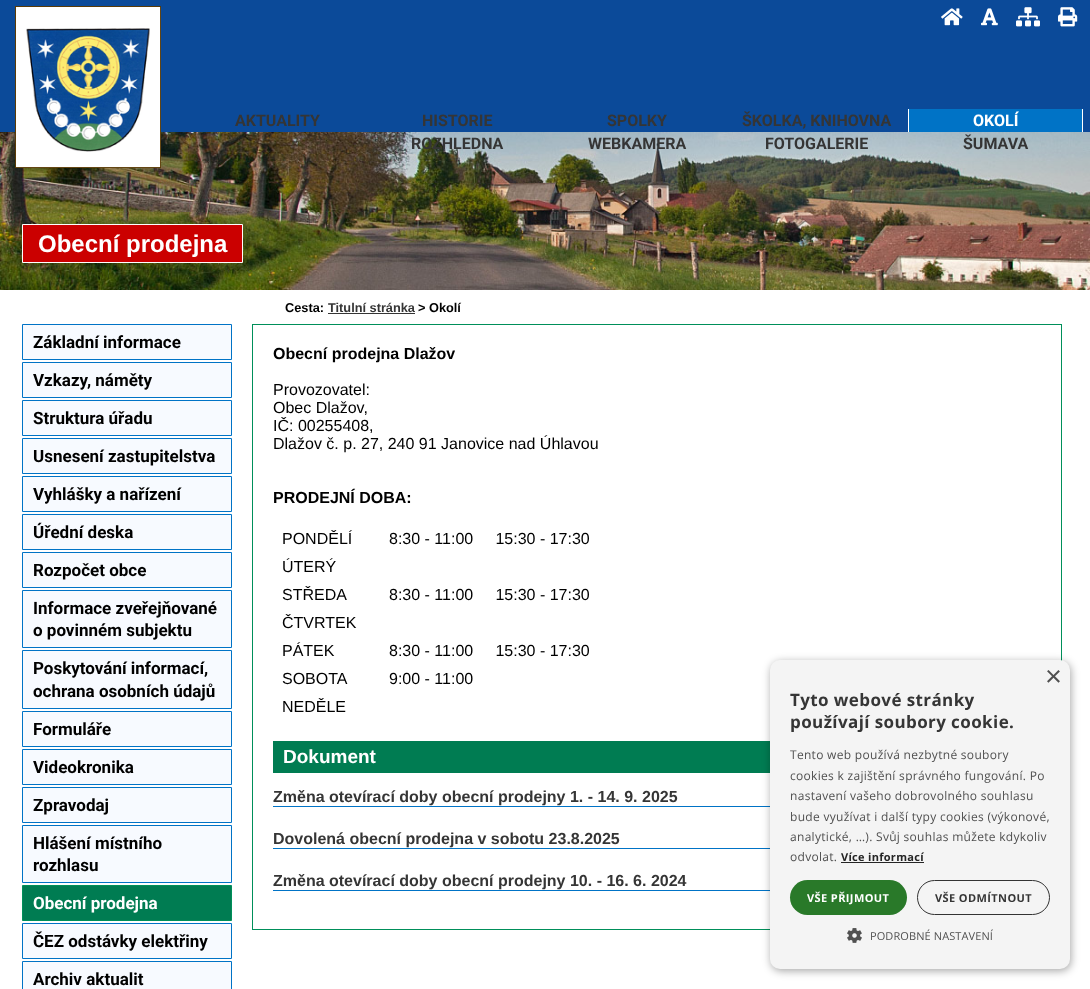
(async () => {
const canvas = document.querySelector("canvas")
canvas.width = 1090
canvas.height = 989
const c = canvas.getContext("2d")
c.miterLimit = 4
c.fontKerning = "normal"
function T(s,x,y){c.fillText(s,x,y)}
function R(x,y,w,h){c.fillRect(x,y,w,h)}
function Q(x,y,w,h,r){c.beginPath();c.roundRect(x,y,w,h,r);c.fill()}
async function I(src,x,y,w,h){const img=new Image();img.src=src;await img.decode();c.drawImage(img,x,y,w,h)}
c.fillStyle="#0b4a99"
R(0,0,1090,989)
await I("6.png",0,132,1090,158)
await I("1.png",15,6,146,162)
await I("2.png",941,8,22,18)
await I("3.png",981,8,17,18)
await I("4.png",1016,7,24,20)
await I("5.png",1058,7,20,20)
c.font="bold 16px Roboto"
c.fillStyle="#353535"
T("AKTUALITY",235,126)
T("HISTORIE",422,126)
T("SPOLKY",607,126)
T("ŠKOLKA, KNIHOVNA",742,126)
c.fillStyle="#0073c6"
R(909,109,173,23)
c.fillStyle="#fff"
R(1082,109,1,23)
R(908,109,1,23)
T("OKOLÍ",973,126)
c.fillStyle="#353535"
T("ROZHLEDNA",411,149)
T("WEBKAMERA",588,149)
T("FOTOGALERIE",765,149)
T("ŠUMAVA",963,149)
c.fillStyle="#cb0000"
c.beginPath()
c.rect(22.5,224.5,220,38)
c.fill()
c.strokeStyle="#fff"
c.stroke()
c.font="bold 24px Liberation Sans"
c.fillStyle="#fff"
T("Obecní prodejna",38,252)
R(0,290,1090,699)
c.font="bold 12.75px Liberation Sans"
c.fillStyle="#000"
T("Cesta:",285,312)
c.fillStyle="#353535"
T("Titulní stránka",328,312)
R(328,313,87,1)
c.fillStyle="#000"
T("> Okolí",418,312)
c.fillStyle="#f7faff"
c.beginPath()
c.rect(22.5,324.5,209,35)
c.fill()
c.strokeStyle="#0073c6"
c.stroke()
c.font="bold 17px Roboto"
c.fillStyle="#000"
T("Základní informace",33,348)
c.fillStyle="#f7faff"
c.beginPath()
c.rect(22.5,362.5,209,35)
c.fill()
c.stroke()
c.fillStyle="#000"
T("Vzkazy, náměty",33,386)
c.fillStyle="#f7faff"
c.beginPath()
c.rect(22.5,400.5,209,35)
c.fill()
c.stroke()
c.fillStyle="#000"
T("Struktura úřadu",33,424)
c.fillStyle="#f7faff"
c.beginPath()
c.rect(22.5,438.5,209,35)
c.fill()
c.stroke()
c.fillStyle="#000"
T("Usnesení zastupitelstva",33,462)
c.fillStyle="#f7faff"
c.beginPath()
c.rect(22.5,476.5,209,35)
c.fill()
c.stroke()
c.fillStyle="#000"
T("Vyhlášky a nařízení",33,500)
c.fillStyle="#f7faff"
c.beginPath()
c.rect(22.5,514.5,209,35)
c.fill()
c.stroke()
c.fillStyle="#000"
T("Úřední deska",33,538)
c.fillStyle="#f7faff"
c.beginPath()
c.rect(22.5,552.5,209,35)
c.fill()
c.stroke()
c.fillStyle="#000"
T("Rozpočet obce",33,576)
c.fillStyle="#f7faff"
c.beginPath()
c.rect(22.5,590.5,209,57)
c.fill()
c.stroke()
c.fillStyle="#000"
T("Informace zveřejňované",33,614)
T("o povinném subjektu",33,636)
c.fillStyle="#f7faff"
c.beginPath()
c.rect(22.5,650.5,209,58)
c.fill()
c.stroke()
c.fillStyle="#000"
T("Poskytování informací,",33,674)
T("ochrana osobních údajů",33,697)
c.fillStyle="#f7faff"
c.beginPath()
c.rect(22.5,711.5,209,35)
c.fill()
c.stroke()
c.fillStyle="#000"
T("Formuláře",33,735)
c.fillStyle="#f7faff"
c.beginPath()
c.rect(22.5,749.5,209,35)
c.fill()
c.stroke()
c.fillStyle="#000"
T("Videokronika",33,773)
c.fillStyle="#f7faff"
c.beginPath()
c.rect(22.5,787.5,209,35)
c.fill()
c.stroke()
c.fillStyle="#000"
T("Zpravodaj",33,811)
c.fillStyle="#f7faff"
c.beginPath()
c.rect(22.5,825.5,209,57)
c.fill()
c.stroke()
c.fillStyle="#000"
T("Hlášení místního",33,849)
T("rozhlasu",33,871)
c.fillStyle="#007c52"
c.beginPath()
c.rect(22.5,885.5,209,35)
c.fill()
c.strokeStyle="#008f5a"
c.stroke()
c.fillStyle="#fff"
T("Obecní prodejna",33,909)
c.fillStyle="#f7faff"
c.beginPath()
c.rect(22.5,923.5,209,35)
c.fill()
c.strokeStyle="#0073c6"
c.stroke()
c.fillStyle="#000"
T("ČEZ odstávky elektřiny",33,947)
c.fillStyle="#f7faff"
c.beginPath()
c.rect(22.5,961.5,209,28)
c.fill()
c.stroke()
c.fillStyle="#000"
T("Archiv aktualit",33,985)
c.strokeStyle="#008f5a"
c.strokeRect(252.5,324.5,809,605)
c.font="bold 16px Liberation Sans"
T("Obecní prodejna Dlažov",273,359)
c.font="16px Liberation Sans"
T("Provozovatel:",273,395)
T("Obec Dlažov,",273,413)
T("IČ: 00255408,",273,431)
T("Dlažov č. p. 27, 240 91 Janovice nad Úhlavou",273,449)
c.font="bold 16px Liberation Sans"
T("PRODEJNÍ DOBA:",273,503)
c.font="16px Liberation Sans"
T("PONDĚLÍ",282,544)
T("8:30 - 11:00     15:30 - 17:30",389,544)
T("ÚTERÝ",282,572)
T("STŘEDA",282,600)
T("8:30 - 11:00     15:30 - 17:30",389,600)
T("ČTVRTEK",282,628)
T("PÁTEK",282,656)
T("8:30 - 11:00     15:30 - 17:30",389,656)
T("SOBOTA",282,684)
T("9:00 - 11:00",389,684)
T("NEDĚLE",282,712)
c.fillStyle="#007c52"
R(273,741,497,32)
c.font="bold 19px Liberation Sans"
c.fillStyle="#fff"
T("Dokument",283,763)
c.fillStyle="#0073c6"
R(273,806,497,1)
c.font="bold 16px Liberation Sans"
c.fillStyle="#353535"
T("Změna otevírací doby obecní prodejny 1. - 14. 9. 2025",273,802)
c.fillStyle="#0073c6"
R(273,848,497,1)
c.fillStyle="#353535"
T("Dovolená obecní prodejna v sobotu 23.8.2025",273,844)
c.fillStyle="#0073c6"
R(273,890,497,1)
c.fillStyle="#353535"
T("Změna otevírací doby obecní prodejny 10. - 16. 6. 2024",273,886)
c.fillStyle="#00000059"
c.filter="blur(4px)"
c.beginPath()
c.roundRect(771,662,300,309,10)
c.fill()
c.filter="none"
c.fillStyle="#f4f4f4"
Q(770,660,300,309,10)
c.font="29px Liberation Sans"
c.fillStyle="#505050"
T("×",1045,686)
c.letterSpacing="0.4px"
c.font="bold 17px Open Sans"
c.fillStyle="#353535"
T("Tyto webové stránky",790,706)
T("používají soubory cookie.",790,728)
c.letterSpacing="0.3px"
c.font="12px Open Sans"
c.fillStyle="#505050"
T("Tento web používá nezbytné soubory",790,759)
T("cookies k zajištění správného fungování. Po",790,780)
T("nastavení vašeho dobrovolného souhlasu",790,800)
T("bude využívat i další typy cookies (výkonové,",790,821)
T("analytické, …). Svůj souhlas můžete kdykoliv",790,841)
T("odvolat.",790,861)
c.font="bold 11px Open Sans"
c.fillStyle="#252525"
T("Více informací",841,861)
R(841,862,83,1)
c.fillStyle="#297929"
Q(790,880,117,35,17.5)
c.letterSpacing="0.4px"
c.fillStyle="#fff"
T("VŠE PŘIJMOUT",807,902)
c.beginPath()
c.roundRect(917.5,880.5,132,34,17)
c.strokeStyle="#333"
c.stroke()
c.fillStyle="#353535"
T("VŠE ODMÍTNOUT",935,902)
await I("7.png",847,928,15,15)
c.letterSpacing="0.1px"
c.font="11px Open Sans"
c.fillStyle="#505050"
T("PODROBNÉ NASTAVENÍ",870,940)
})()
